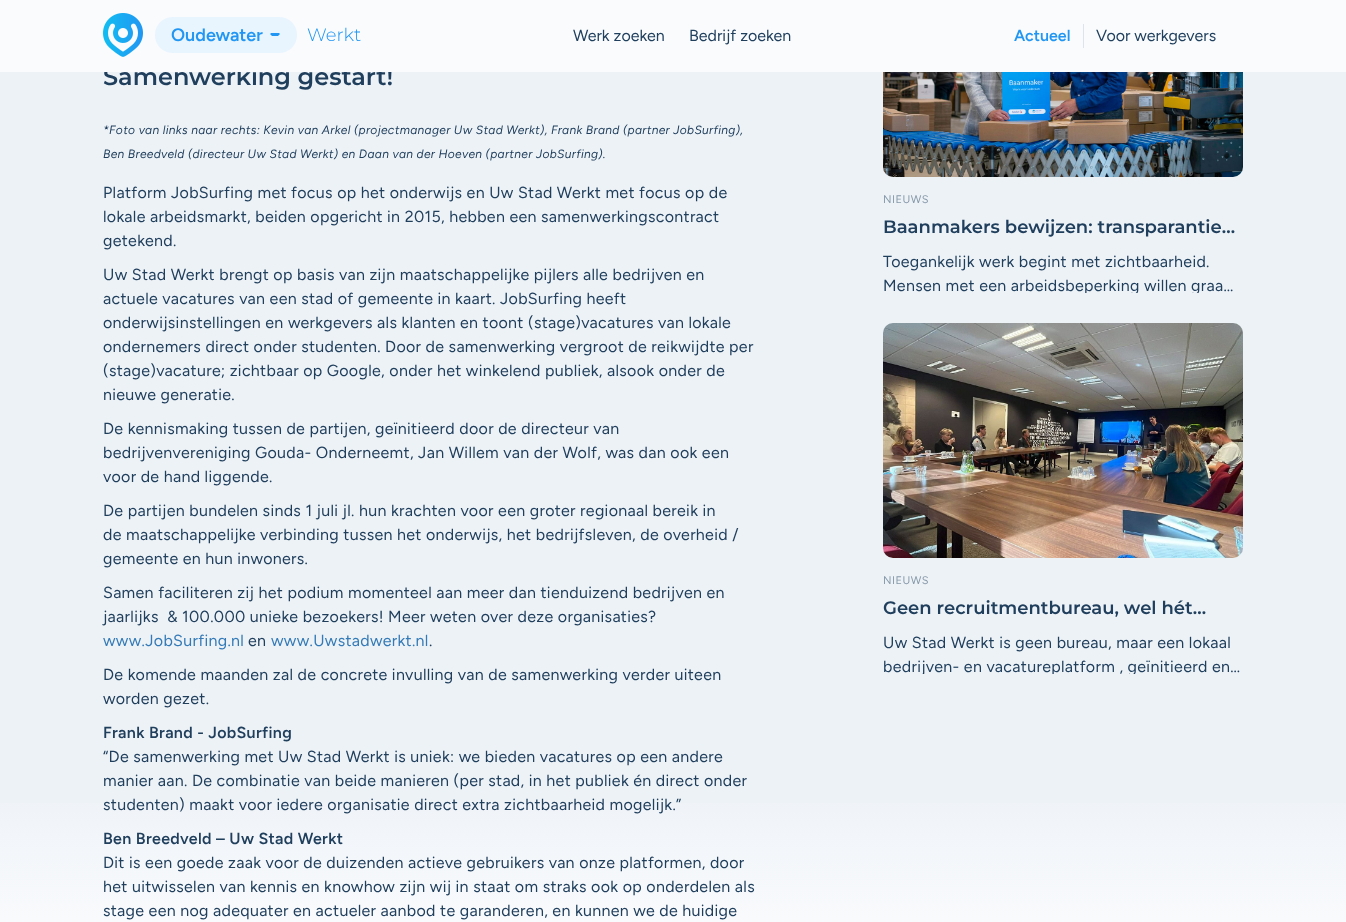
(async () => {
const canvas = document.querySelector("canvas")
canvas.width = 1346
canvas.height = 922
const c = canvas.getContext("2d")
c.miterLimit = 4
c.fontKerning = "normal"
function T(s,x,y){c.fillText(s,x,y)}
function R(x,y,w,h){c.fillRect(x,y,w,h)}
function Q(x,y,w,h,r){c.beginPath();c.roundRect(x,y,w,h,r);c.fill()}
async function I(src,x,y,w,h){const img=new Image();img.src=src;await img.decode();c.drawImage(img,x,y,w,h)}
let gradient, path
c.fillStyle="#edf2f6"
R(0,0,1346,922)
c.font="600 24px Montserrat"
c.fillStyle="#203f5d"
T("Samenwerking gestart!",103,85)
c.fillStyle="#f9fbfd"
R(0,0,1346,72)
await I("1.png",103,13,40,44)
c.fillStyle="#e8f4fe"
Q(155,17,142,36,18)
c.font="600 18px Figtree"
c.fillStyle="#2196f3"
T("Oudewater",171,41)
path = new Path2D("M272 33c-1 0-1.5 .5-2 1l2 2h6l2-2l-1-1z")
c.fill(path)
c.font="300 18px Montserrat"
T("Werkt",307,41)
c.font="16px Figtree"
c.fillStyle="#203f5d"
T("Werk zoeken",573,41)
T("Bedrijf zoeken",689,41)
c.font="600 16px Figtree"
c.fillStyle="#2196f3"
T("Actueel",1014,41)
c.fillStyle="#dde4ea"
R(1083,24,1,24)
c.font="16px Figtree"
c.fillStyle="#203f5d"
T("Voor werkgevers",1096,41)
c.letterSpacing="0.32px"
c.font="italic 12px Figtree"
T("*Foto van links naar rechts: Kevin van Arkel (projectmanager Uw Stad Werkt), Frank Brand (partner JobSurfing),",103,134)
T("Ben Breedveld (directeur Uw Stad Werkt) en Daan van der Hoeven (partner JobSurfing).",103,158)
c.font="16px Figtree"
T("Platform JobSurfing met focus op het onderwijs en Uw Stad Werkt met focus op de",103,198)
T("lokale arbeidsmarkt, beiden opgericht in 2015, hebben een samenwerkingscontract",103,222)
T("getekend.",103,246)
T("Uw Stad Werkt brengt op basis van zijn maatschappelijke pijlers alle bedrijven en",103,280)
T("actuele vacatures van een stad of gemeente in kaart. JobSurfing heeft",103,304)
T("onderwijsinstellingen en werkgevers als klanten en toont (stage)vacatures van lokale",103,328)
T("ondernemers direct onder studenten. Door de samenwerking vergroot de reikwijdte per",103,352)
T("(stage)vacature; zichtbaar op Google, onder het winkelend publiek, alsook onder de",103,376)
T("nieuwe generatie.",103,400)
T("De kennismaking tussen de partijen, geïnitieerd door de directeur van",103,434)
T("bedrijvenvereniging Gouda- Onderneemt, Jan Willem van der Wolf, was dan ook een",103,458)
T("voor de hand liggende.",103,482)
T("De partijen bundelen sinds 1 juli jl. hun krachten voor een groter regionaal bereik in",103,516)
T("de maatschappelijke verbinding tussen het onderwijs, het bedrijfsleven, de overheid /",103,540)
T("gemeente en hun inwoners.",103,564)
T("Samen faciliteren zij het podium momenteel aan meer dan tienduizend bedrijven en",103,598)
T("jaarlijks  & 100.000 unieke bezoekers! Meer weten over deze organisaties?",103,622)
c.fillStyle="#337ab7"
T("www.JobSurfing.nl",103,646)
c.fillStyle="#203f5d"
T("en",248,646)
c.fillStyle="#337ab7"
T("www.Uwstadwerkt.nl",271,646)
c.fillStyle="#203f5d"
T(".",429,646)
T("De komende maanden zal de concrete invulling van de samenwerking verder uiteen",103,680)
T("worden gezet.",103,704)
c.font="600 16px Figtree"
T("Frank Brand - JobSurfing",103,738)
c.font="16px Figtree"
T("“De samenwerking met Uw Stad Werkt is uniek: we bieden vacatures op een andere",103,762)
T("manier aan. De combinatie van beide manieren (per stad, in het publiek én direct onder",103,786)
gradient = c.createLinearGradient(673,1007,673,757)
gradient.addColorStop(0,"#fff")
gradient.addColorStop(1,"#ecf1f7")
c.fillStyle = gradient
R(0,803,1346,119)
c.fillStyle="#203f5d"
T("studenten) maakt voor iedere organisatie direct extra zichtbaarheid mogelijk.”",103,810)
c.font="600 16px Figtree"
T("Ben Breedveld – Uw Stad Werkt",103,844)
c.font="16px Figtree"
T("Dit is een goede zaak voor de duizenden actieve gebruikers van onze platformen, door",103,868)
T("het uitwisselen van kennis en knowhow zijn wij in staat om straks ook op onderdelen als",103,892)
T("stage een nog adequater en actueler aanbod te garanderen, en kunnen we de huidige",103,916)
await I("2.png",883,72,360,105)
c.letterSpacing="0.5px"
c.font="11px Figtree"
c.fillStyle="#8799aa"
T("NIEUWS",883,203)
c.letterSpacing="0px"
c.font="600 18px Montserrat"
c.fillStyle="#203f5d"
T("Baanmakers bewijzen: transparantie…",883,233)
c.letterSpacing="0.32px"
c.font="16px Figtree"
T("Toegankelijk werk begint met zichtbaarheid.",883,267)
c.save()
c.beginPath()
c.rect(883,250,360,43)
c.clip()
T("Mensen met een arbeidsbeperking willen graa…",883,291)
c.restore()
await I("3.png",883,323,360,235)
c.letterSpacing="0.5px"
c.font="11px Figtree"
c.fillStyle="#8799aa"
T("NIEUWS",883,584)
c.letterSpacing="0px"
c.font="600 18px Montserrat"
c.fillStyle="#203f5d"
T("Geen recruitmentbureau, wel hét…",883,614)
c.letterSpacing="0.32px"
c.font="16px Figtree"
T("Uw Stad Werkt is geen bureau, maar een lokaal",883,648)
c.save()
c.beginPath()
c.rect(883,631,360,43)
c.clip()
T("bedrijven- en vacatureplatform , geïnitieerd en…",883,672)
c.restore()
})()
